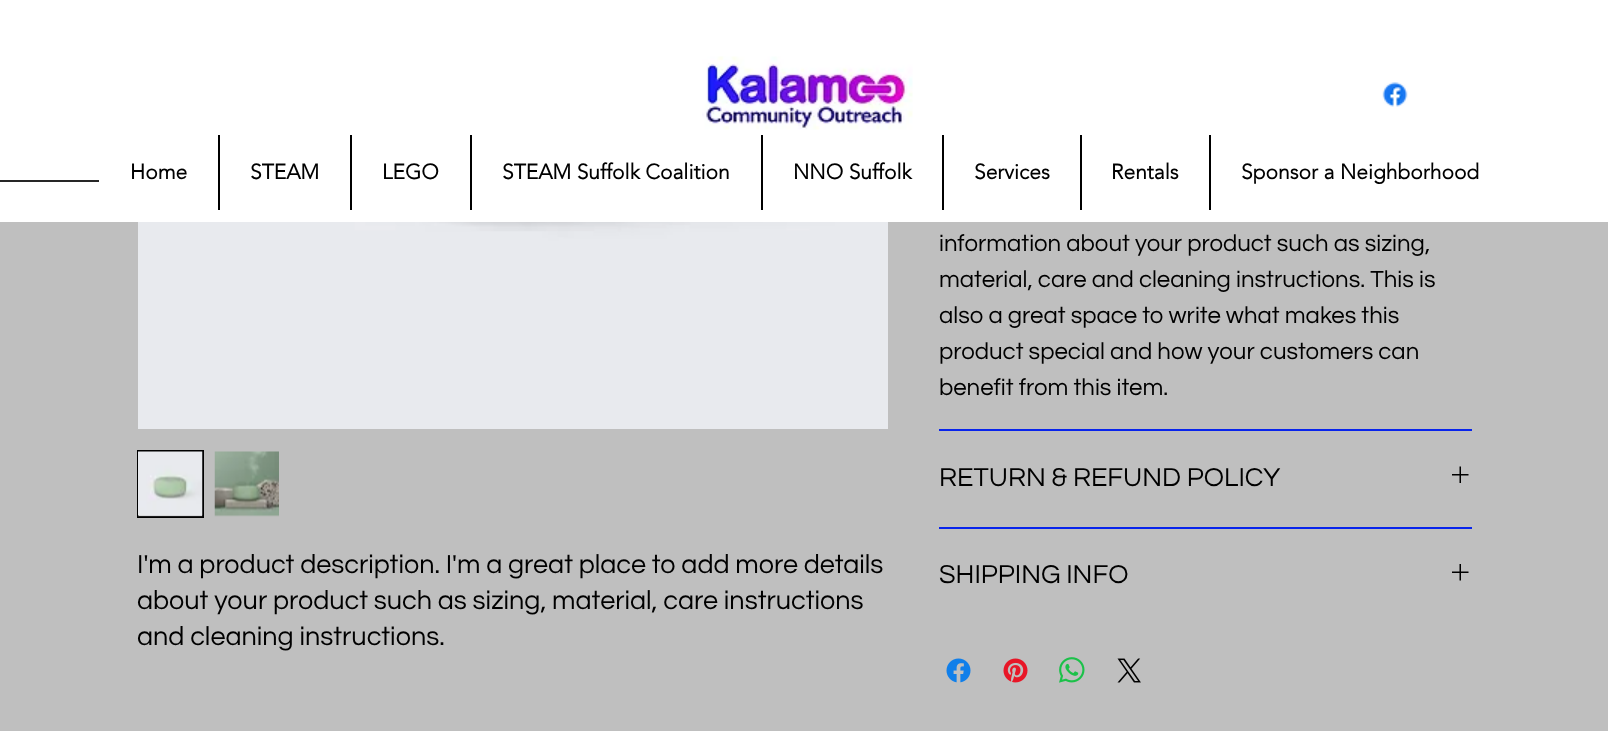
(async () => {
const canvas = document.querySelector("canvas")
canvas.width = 1608
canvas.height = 731
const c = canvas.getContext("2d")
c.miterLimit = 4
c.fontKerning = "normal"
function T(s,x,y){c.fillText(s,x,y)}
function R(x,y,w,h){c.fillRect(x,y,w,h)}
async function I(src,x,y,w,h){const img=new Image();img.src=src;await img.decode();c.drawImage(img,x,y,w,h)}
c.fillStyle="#bfbfbf"
R(0,0,1608,731)
c.fillStyle="#fff"
R(0,0,1608,222)
await I("1.png",702,56,211,74)
await I("2.png",1382,82,26,25)
c.fillStyle="#262626"
R(0,180,99,2)
c.font="bold 21px 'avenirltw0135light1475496'"
c.fillStyle="#000"
T("Home",130,179)
R(218,135,2,75)
T("STEAM",250,179)
R(350,135,2,75)
T("LEGO",382,179)
R(470,135,2,75)
T("STEAM Suffolk Coalition",502,179)
R(761,135,2,75)
T("NNO Suffolk",793,179)
R(942,135,2,75)
T("Services",974,179)
R(1080,135,2,75)
T("Rentals",1111,179)
R(1209,135,2,75)
T("Sponsor a Neighborhood",1241,179)
c.fillStyle="#0824ec"
R(939,429,533,2)
c.font="24px Questrial"
c.fillStyle="#000"
T("information about your product such as sizing,",939,251)
T("material, care and cleaning instructions. This is",939,287)
T("also a great space to write what makes this",939,323)
T("product special and how your customers can",939,359)
T("benefit from this item.",939,395)
c.fillStyle="#0824ec"
R(939,527,533,2)
c.font="27px Questrial"
c.fillStyle="#000"
T("RETURN & REFUND POLICY",939,486)
await I("3.png",1452,466,17,17)
T("SHIPPING INFO",939,583)
await I("4.png",1452,564,17,17)
await I("5.png",946,658,25,25)
await I("6.png",1003,658,25,25)
await I("7.png",1059,657,26,26)
await I("8.png",1117,658,24,25)
await I("9.png",138,222,750,207)
c.strokeStyle="#000"
c.lineWidth=2
c.strokeRect(138,451,65,66)
await I("10.png",138,451,65,66)
await I("11.png",214,451,65,66)
T("I'm a product description. I'm a great place to add more details",137,573)
T("about your product such as sizing, material, care instructions",137,609)
T("and cleaning instructions.",137,645)
})()
